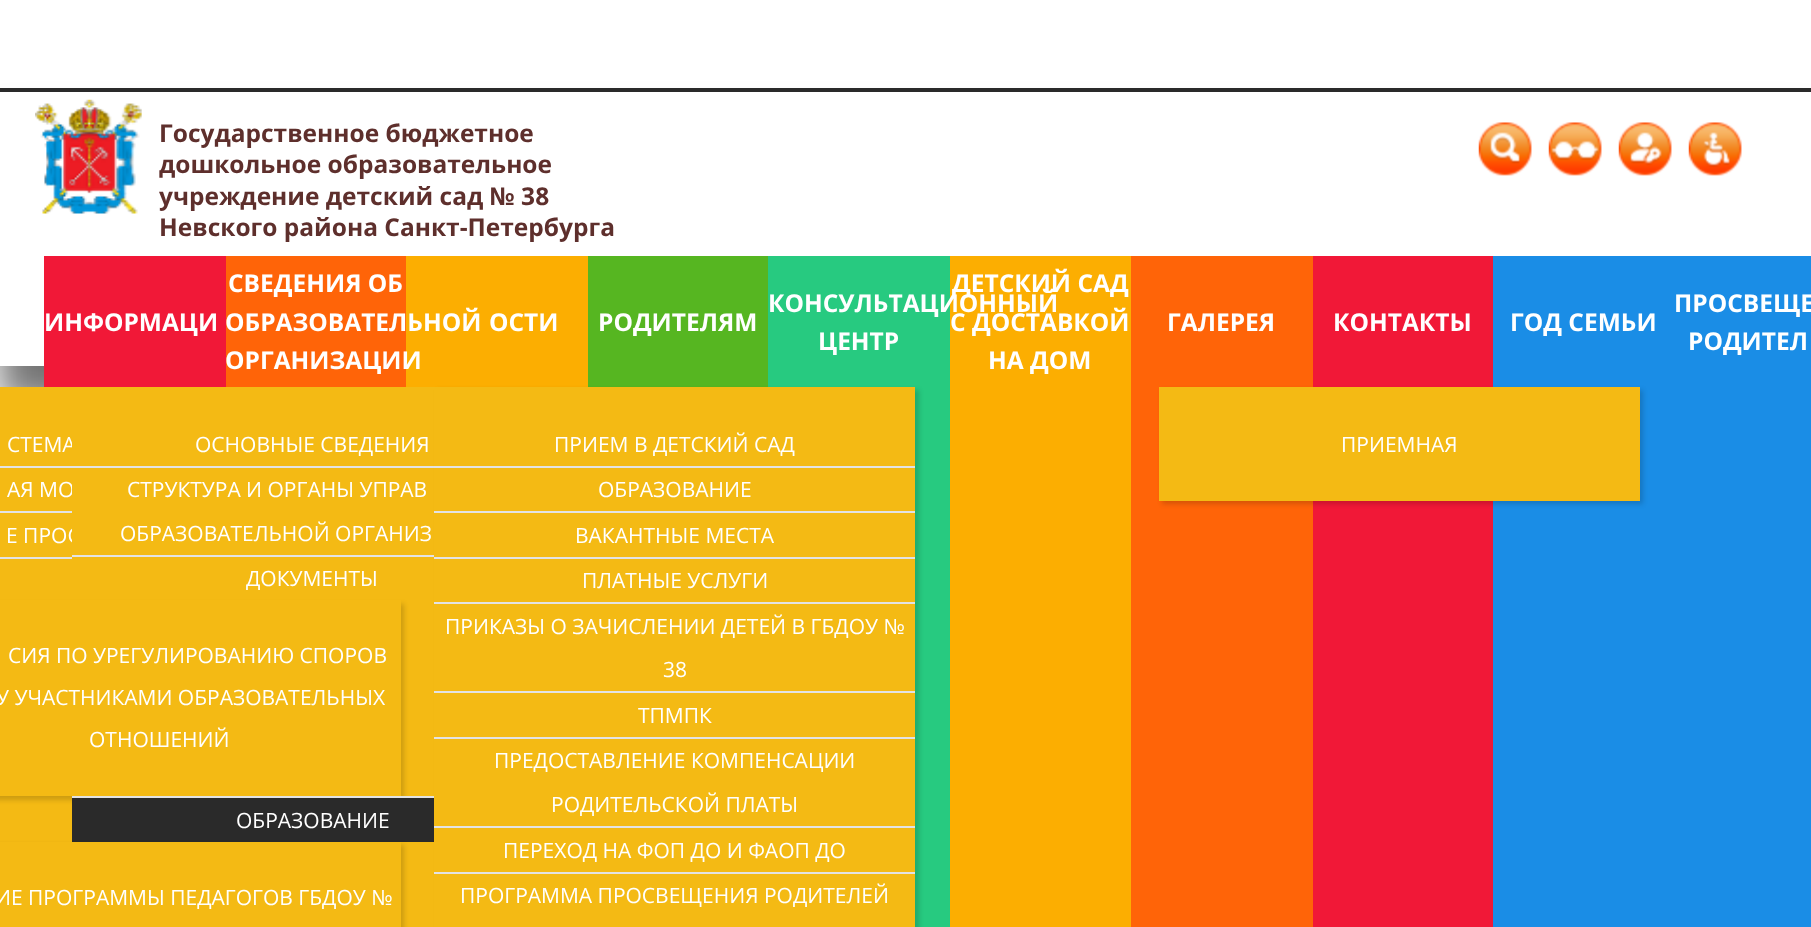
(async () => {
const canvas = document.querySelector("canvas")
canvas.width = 1811
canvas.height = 927
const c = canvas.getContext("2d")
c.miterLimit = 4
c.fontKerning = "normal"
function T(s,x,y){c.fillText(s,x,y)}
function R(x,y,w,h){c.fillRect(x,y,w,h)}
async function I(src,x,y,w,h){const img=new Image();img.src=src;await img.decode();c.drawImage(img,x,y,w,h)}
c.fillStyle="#fff"
R(0,0,1811,927)
c.fillStyle="#0000008c"
c.filter="blur(18.5px)"
c.beginPath()
c.rect(0,124,1811,279)
c.fill()
c.filter="none"
c.fillStyle="#fff"
R(0,92,1811,274)
c.fillStyle="#2a2a2a"
R(0,88,1811,4)
await I("1.png",35,99,107,115)
c.font="bold 24.5px Open Sans"
c.fillStyle="#5e2f2c"
T("Государственное бюджетное",159,142)
T("дошкольное образовательное",159,173)
T("учреждение детский сад № 38",159,205)
T("Невского района Санкт-Петербурга",159,236)
await I("2.png",1478,122,54,54)
await I("3.png",1548,122,54,54)
await I("4.png",1618,122,54,54)
await I("5.png",1688,122,54,54)
c.fillStyle="#ff6408"
R(226,256,180,131)
c.fillStyle="#fff"
T("СВЕДЕНИЯ ОБ",228,292)
c.fillStyle="#fcae01"
R(406,256,182,131)
c.fillStyle="#fff"
T("ОБРАЗОВАТЕЛЬНОЙ",225,331)
T("ОРГАНИЗАЦИИ",225,369)
c.fillStyle="#f4ba14"
R(0,387,72,213)
c.font="21px Open Sans"
c.fillStyle="#fff"
T("СТЕМА",7,452)
T("АЯ МО",7,497)
T("Е ПРОС",6,543)
c.fillStyle="#f4ba14"
R(72,387,362,540)
c.fillStyle="#fff"
T("ОСНОВНЫЕ СВЕДЕНИЯ",195,452)
c.fillStyle="#e3e3e3"
R(72,466,362,2)
c.fillStyle="#fff"
T("СТРУКТУРА И ОРГАНЫ УПРАВ",127,497)
T("ОБРАЗОВАТЕЛЬНОЙ ОРГАНИЗ",120,541)
c.fillStyle="#e3e3e3"
R(72,555,362,2)
c.fillStyle="#fff"
T("ДОКУМЕНТЫ",246,586)
c.fillStyle="#f4ba14"
R(0,796,72,46)
c.fillStyle="#00000029"
c.filter="blur(2.5px)"
c.beginPath()
c.rect(-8,604,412,196)
c.fill()
c.filter="none"
c.fillStyle="#f4ba14"
R(0,600,401,196)
c.fillStyle="#fff"
T("СИЯ ПО УРЕГУЛИРОВАНИЮ СПОРОВ",8,663)
T("У УЧАСТНИКАМИ ОБРАЗОВАТЕЛЬНЫХ",-4,705)
T("ОТНОШЕНИЙ",89,747)
c.fillStyle="#e3e3e3"
R(72,796,362,2)
c.fillStyle="#2a2a2a"
R(72,798,362,44)
c.fillStyle="#fff"
T("ОБРАЗОВАНИЕ",236,828)
c.fillStyle="#00000029"
c.filter="blur(2.5px)"
c.beginPath()
c.rect(-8,845,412,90)
c.fill()
c.filter="none"
c.fillStyle="#f4ba14"
R(0,842,401,85)
c.fillStyle="#fff"
T("ИЕ ПРОГРАММЫ ПЕДАГОГОВ ГБДОУ №",-5,905)
c.fillStyle="#fcae01"
R(950,256,181,671)
c.font="bold 24.5px Open Sans"
c.fillStyle="#fff"
T("ДЕТСКИЙ САД",952,292)
T("С ДОСТАВКОЙ",950,331)
T("НА ДОМ",988,369)
c.fillStyle="#f11837"
R(44,256,182,131)
c.fillStyle="#fff"
T("ИНФОРМАЦИ",44,331)
c.fillStyle="#e3e3e3"
R(0,466,72,2)
R(0,511,72,2)
R(0,557,72,2)
c.fillStyle="#56b621"
R(588,256,180,131)
c.fillStyle="#fff"
T("РОДИТЕЛЯМ",598,331)
c.fillStyle="#27ca80"
R(768,256,182,671)
c.fillStyle="#00000029"
c.filter="blur(2.5px)"
c.beginPath()
c.rect(438,390,481,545)
c.fill()
c.filter="none"
c.fillStyle="#f4ba14"
R(434,387,481,540)
c.font="21px Open Sans"
c.fillStyle="#fff"
T("ПРИЕМ В ДЕТСКИЙ САД",554,452)
c.fillStyle="#e3e3e3"
R(434,466,481,2)
c.fillStyle="#fff"
T("ОБРАЗОВАНИЕ",598,497)
c.fillStyle="#e3e3e3"
R(434,511,481,2)
c.fillStyle="#fff"
T("ВАКАНТНЫЕ МЕСТА",575,543)
c.fillStyle="#e3e3e3"
R(434,557,481,2)
c.fillStyle="#fff"
T("ПЛАТНЫЕ УСЛУГИ",582,588)
c.fillStyle="#e3e3e3"
R(434,602,481,2)
c.fillStyle="#fff"
T("ПРИКАЗЫ О ЗАЧИСЛЕНИИ ДЕТЕЙ В ГБДОУ №",445,634)
T("38",663,677)
c.fillStyle="#e3e3e3"
R(434,691,481,2)
c.fillStyle="#fff"
T("ТПМПК",638,723)
c.fillStyle="#e3e3e3"
R(434,737,481,2)
c.fillStyle="#fff"
T("ПРЕДОСТАВЛЕНИЕ КОМПЕНСАЦИИ",494,768)
T("РОДИТЕЛЬСКОЙ ПЛАТЫ",551,812)
c.fillStyle="#e3e3e3"
R(434,826,481,2)
c.fillStyle="#fff"
T("ПЕРЕХОД НА ФОП ДО И ФАОП ДО",503,858)
c.fillStyle="#e3e3e3"
R(434,872,481,2)
c.fillStyle="#fff"
T("ПРОГРАММА ПРОСВЕЩЕНИЯ РОДИТЕЛЕЙ",460,903)
c.font="bold 24.5px Open Sans"
T("КОНСУЛЬТАЦИОННЫЙ",768,312)
T("ЦЕНТР",818,350)
c.fillStyle="#1a8de6"
R(1493,256,318,671)
c.fillStyle="#fff"
T("ПРОСВЕЩЕ",1674,312)
T("РОДИТЕЛ",1688,350)
T("ОСТИ",489,331)
c.fillStyle="#ff6408"
R(1131,256,182,671)
c.fillStyle="#fff"
T("ГАЛЕРЕЯ",1167,331)
c.fillStyle="#f11837"
R(1313,256,180,671)
c.fillStyle="#fff"
T("КОНТАКТЫ",1333,331)
c.fillStyle="#00000029"
c.filter="blur(2.5px)"
c.beginPath()
c.rect(1162,390,481,114)
c.fill()
c.filter="none"
c.fillStyle="#f4ba14"
R(1159,387,481,114)
c.font="21px Open Sans"
c.fillStyle="#fff"
T("ПРИЕМНАЯ",1341,452)
c.font="bold 24.5px Open Sans"
T("ГОД СЕМЬИ",1510,331)
})()
